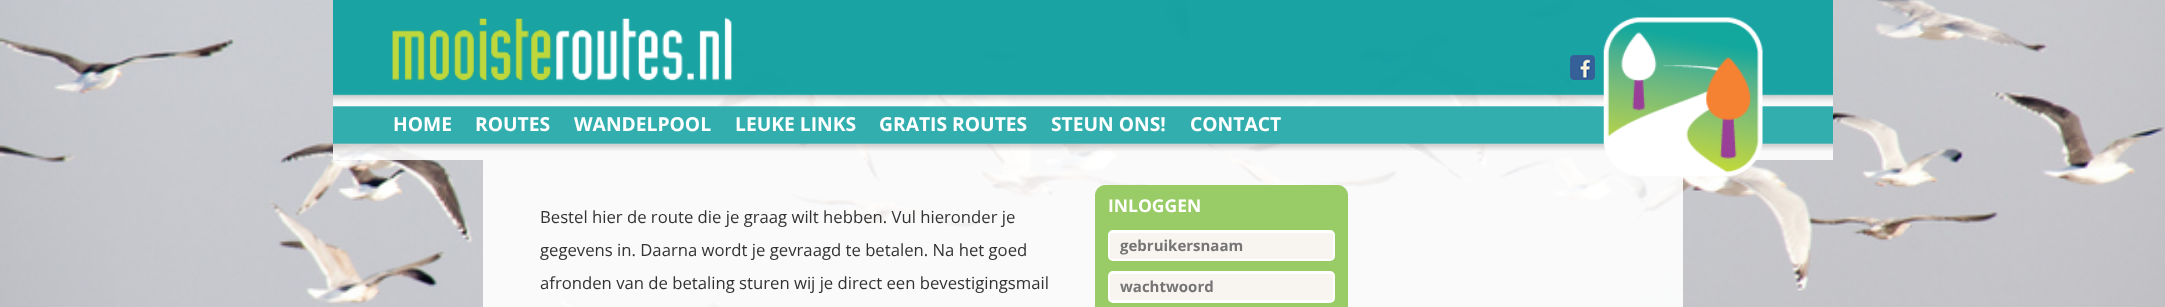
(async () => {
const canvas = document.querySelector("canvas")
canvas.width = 2165
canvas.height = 307
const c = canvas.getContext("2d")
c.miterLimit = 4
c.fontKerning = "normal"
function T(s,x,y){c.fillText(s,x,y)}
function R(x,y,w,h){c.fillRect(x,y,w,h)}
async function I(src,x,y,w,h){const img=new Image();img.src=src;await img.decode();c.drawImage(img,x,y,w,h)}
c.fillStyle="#fff"
R(0,0,2165,307)
await I("1.png",0,0,2165,307)
c.fillStyle="#ffffffe6"
R(333,0,1500,160)
await I("5.png",333,0,1500,151)
await I("2.png",392,17,340,64)
await I("3.png",1570,55,25,25)
R(483,160,1200,147)
await I("4.png",1603,17,160,160)
c.font="bold 19.25px Open Sans"
c.fillStyle="#fff"
T("HOME",393,131)
T("ROUTES",475,131)
T("WANDELPOOL",574,131)
T("LEUKE LINKS",735,131)
T("GRATIS ROUTES",879,131)
T("STEUN ONS!",1051,131)
T("CONTACT",1190,131)
c.font="16.7px Open Sans"
c.fillStyle="#333"
T("Bestel hier de route die je graag wilt hebben. Vul hieronder je",540,223)
T("gegevens in. Daarna wordt je gevraagd te betalen. Na het goed",540,256)
T("afronden van de betaling sturen wij je direct een bevestigingsmail",540,289)
c.fillStyle="#9c6"
c.beginPath()
c.roundRect(1095.5,185.5,252,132,9.5)
c.fill()
c.strokeStyle="#9c6"
c.stroke()
c.font="bold 17.5px Open Sans"
c.fillStyle="#fff"
T("INLOGGEN",1108,212)
c.beginPath()
c.roundRect(1109.5,231.5,224,28,3.5)
c.strokeStyle="#fff"
c.lineWidth=3
c.stroke()
c.fillStyle="#f8f4f0"
R(1110,233,223,26)
c.font="bold 15px Open Sans"
c.fillStyle="#757575"
T("gebruikersnaam",1120,251)
c.beginPath()
c.roundRect(1109.5,272.5,224,29,3.5)
c.stroke()
c.fillStyle="#f8f4f0"
R(1110,274,223,26)
c.fillStyle="#757575"
T("wachtwoord",1120,292)
})()
